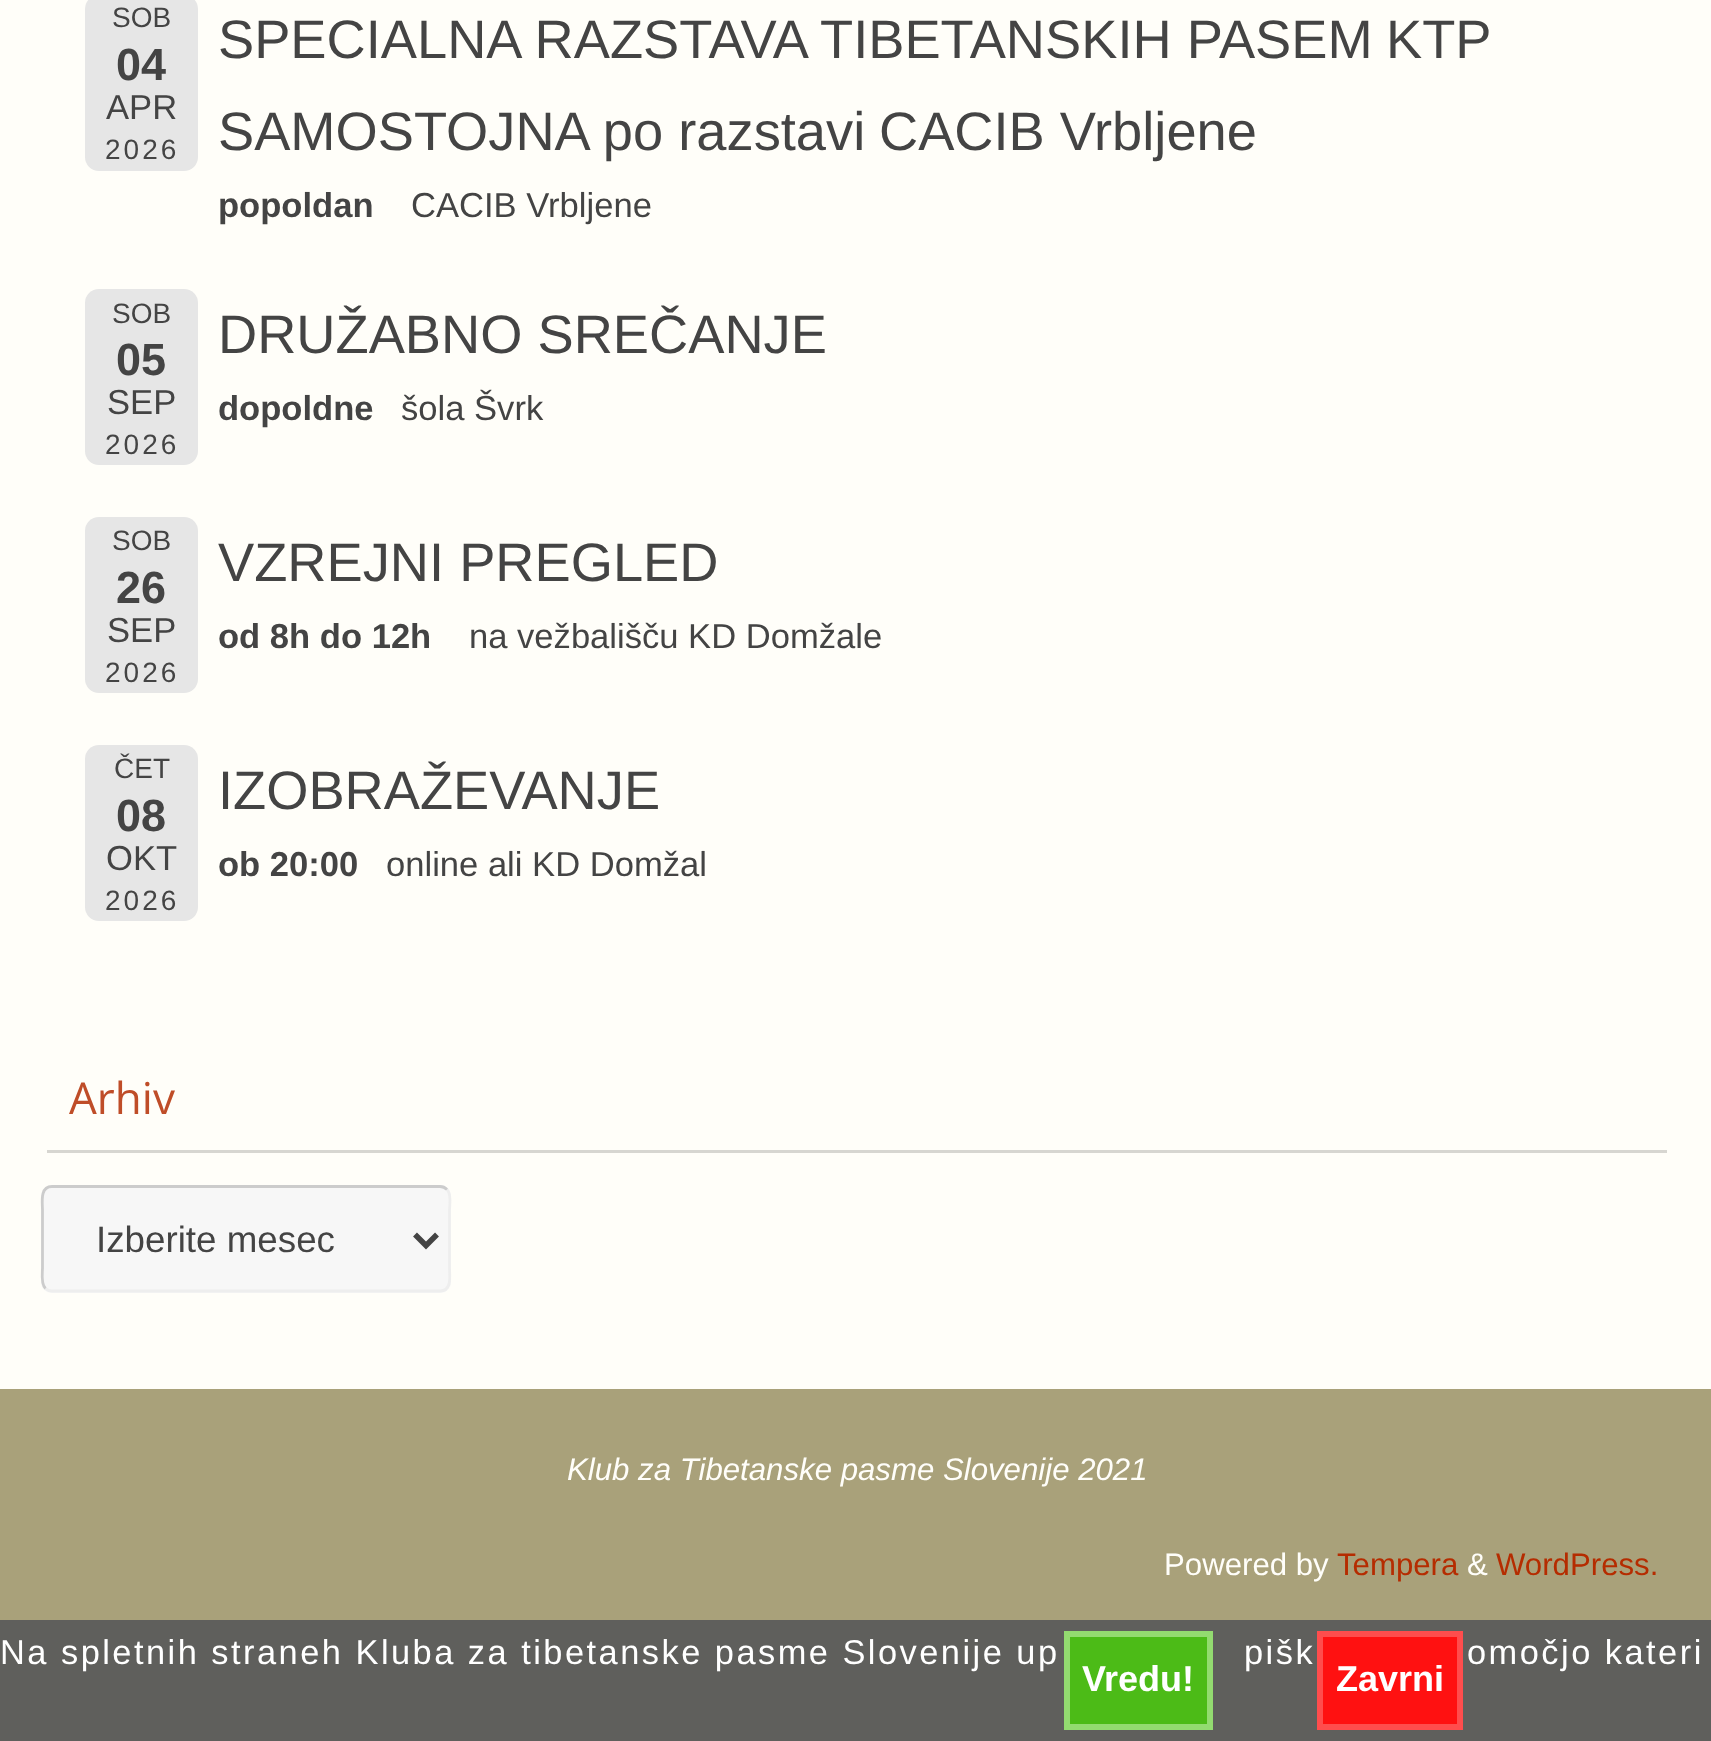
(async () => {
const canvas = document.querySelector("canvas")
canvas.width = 1711
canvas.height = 1741
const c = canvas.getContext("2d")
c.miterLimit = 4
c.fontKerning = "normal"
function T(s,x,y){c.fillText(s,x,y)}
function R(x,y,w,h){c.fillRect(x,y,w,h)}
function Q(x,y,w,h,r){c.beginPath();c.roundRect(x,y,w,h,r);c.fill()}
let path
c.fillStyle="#fffef9"
R(0,0,1711,1741)
c.fillStyle="#e6e6e6"
Q(85,-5,113,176,14)
c.font="28px Liberation Sans"
c.fillStyle="#444"
T("SOB",112,27)
c.font="bold 45px Liberation Sans"
T("04",116,80)
c.font="34.6px Liberation Sans"
T("APR",106,119)
c.letterSpacing="3px"
c.font="28px Liberation Sans"
T("2026",105,159)
c.letterSpacing="0px"
c.font="54.25px Liberation Sans"
T("SPECIALNA RAZSTAVA TIBETANSKIH PASEM",218,58)
T("KTP",1386,58)
T("SAMOSTOJNA po razstavi",218,150)
T("CACIB Vrbljene",879,150)
c.font="bold 34.6px Liberation Sans"
T("popoldan",218,217)
c.font="34.6px Liberation Sans"
T("CACIB Vrbljene",411,217)
c.fillStyle="#e6e6e6"
Q(85,289,113,176,14)
c.font="28px Liberation Sans"
c.fillStyle="#444"
T("SOB",112,323)
c.font="bold 45px Liberation Sans"
T("05",116,375)
c.font="34.6px Liberation Sans"
T("SEP",107,414)
c.letterSpacing="3px"
c.font="28px Liberation Sans"
T("2026",105,454)
c.letterSpacing="0px"
c.font="54.25px Liberation Sans"
T("DRUŽABNO SREČANJE",218,353)
c.font="bold 34.6px Liberation Sans"
T("dopoldne",218,420)
c.font="34.6px Liberation Sans"
T("šola Švrk",401,420)
c.fillStyle="#e6e6e6"
Q(85,517,113,176,14)
c.font="28px Liberation Sans"
c.fillStyle="#444"
T("SOB",112,550)
c.font="bold 45px Liberation Sans"
T("26",116,603)
c.font="34.6px Liberation Sans"
T("SEP",107,642)
c.letterSpacing="3px"
c.font="28px Liberation Sans"
T("2026",105,682)
c.letterSpacing="0px"
c.font="54.25px Liberation Sans"
T("VZREJNI PREGLED",218,581)
c.font="bold 34.6px Liberation Sans"
T("od 8h do 12h",218,648)
c.font="34.6px Liberation Sans"
T("na vežbališču KD Domžale",469,648)
c.fillStyle="#e6e6e6"
Q(85,745,113,176,14)
c.font="28px Liberation Sans"
c.fillStyle="#444"
T("ČET",114,778)
c.font="bold 45px Liberation Sans"
T("08",116,831)
c.font="34.6px Liberation Sans"
T("OKT",106,870)
c.letterSpacing="3px"
c.font="28px Liberation Sans"
T("2026",105,910)
c.letterSpacing="0px"
c.font="54.25px Liberation Sans"
T("IZOBRAŽEVANJE",218,809)
c.font="bold 34.6px Liberation Sans"
T("ob 20:00",218,876)
c.font="34.6px Liberation Sans"
T("online ali KD Domžal",386,876)
c.fillStyle="#d7d6d1"
R(47,1150,1620,3)
c.font="44px Open Sans"
c.fillStyle="#bf4d28"
T("Arhiv",69,1114)
c.fillStyle="#f7f7f7"
Q(41,1185,410,108,11)
path = new Path2D("M447 1189.5c5 5 2.5 16 2.5 21v57c0 7 3 23.5-9.5 23.5h-388c-2.5 0-5-1-6.5-2.5")
c.strokeStyle="#eee"
c.lineWidth=2.8
c.stroke(path)
path = new Path2D("M45.5 1288.5c-5-5-3-16-3-21v-57c0-7.5-3-24 9.5-24h388c2.5 0 5 1 7 3")
c.strokeStyle="#ccc"
c.stroke(path)
path = new Path2D("M415 1234.5l11 11l11-11")
c.strokeStyle="#444"
c.lineWidth=5.5
c.stroke(path)
c.font="36.75px Liberation Sans"
c.fillStyle="#444"
T("Izberite mesec",96,1252)
c.fillStyle="#a9a17a"
R(0,1389,1711,231)
c.font="italic 31.2px Liberation Sans"
c.fillStyle="#fffef9"
T("Klub za Tibetanske pasme Slovenije 2021",567,1480)
c.font="31.2px Liberation Sans"
T("Powered by",1164,1575)
c.fillStyle="#b52c00"
T("Tempera",1337,1575)
c.fillStyle="#fffef9"
T("&",1467,1575)
c.fillStyle="#b52c00"
T("WordPress.",1496,1575)
c.fillStyle="#5f5f5c"
R(0,1620,1711,121)
c.letterSpacing="2.48px"
c.font="34.4px Liberation Sans"
c.fillStyle="#fff"
T("Na spletnih straneh Kluba za tibetanske pasme Slovenije up",0,1664)
T("pišk",1244,1664)
T("omočjo kateri",1467,1664)
c.fillStyle="#4cbb17"
c.beginPath()
c.rect(1067,1634,143,93)
c.fill()
c.strokeStyle="#93db70"
c.lineWidth=6
c.stroke()
c.letterSpacing="0px"
c.font="bold 36px Liberation Sans"
c.fillStyle="#fff"
T("Vredu!",1082,1691)
c.fillStyle="#f11"
c.beginPath()
c.rect(1320,1634,140,93)
c.fill()
c.strokeStyle="#ff4d4d"
c.stroke()
c.fillStyle="#fff"
T("Zavrni",1336,1691)
})()
